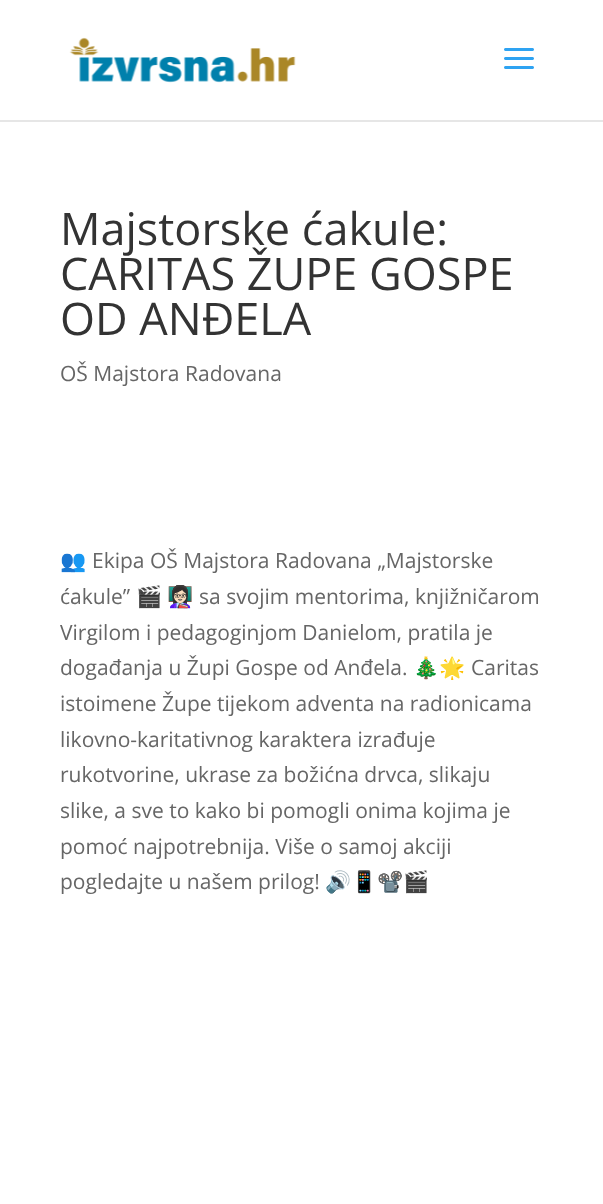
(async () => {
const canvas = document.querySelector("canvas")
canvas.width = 603
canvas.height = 1204
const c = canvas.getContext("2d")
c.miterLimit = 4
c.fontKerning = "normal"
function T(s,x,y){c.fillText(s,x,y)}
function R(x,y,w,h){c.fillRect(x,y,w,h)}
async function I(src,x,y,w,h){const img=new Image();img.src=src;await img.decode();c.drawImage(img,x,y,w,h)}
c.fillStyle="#fff"
R(0,0,603,1204)
c.fillStyle="#e6e6e6"
R(0,120,603,2)
await I("1.png",69,37,227,46)
await I("2.png",504,48,30,21)
c.font="45px Open Sans"
c.fillStyle="#333"
T("Majstorske ćakule:",60,245)
T("CARITAS ŽUPE GOSPE",60,290)
T("OD ANĐELA",60,335)
c.font="21px Open Sans"
c.fillStyle="#666"
T("OŠ Majstora Radovana",60,381)
c.font="21px Noto Color Emoji"
T("👥",60,568)
c.font="21px Open Sans"
T("Ekipa OŠ Majstora Radovana „Majstorske",92,568)
T("ćakule”",60,604)
c.font="21px Noto Color Emoji"
T("🎬",136,604)
T("👩🏻‍🏫",167,604)
c.font="21px Open Sans"
T("sa svojim mentorima, knjižničarom",199,604)
T("Virgilom i pedagoginjom Danielom, pratila je",60,640)
T("događanja u Župi Gospe od Anđela.",60,675)
c.font="21px Noto Color Emoji"
T("🎄🌟",413,675)
c.font="21px Open Sans"
T("Caritas",471,675)
T("istoimene Župe tijekom adventa na radionicama",60,711)
T("likovno-karitativnog karaktera izrađuje",60,747)
T("rukotvorine, ukrase za božićna drvca, slikaju",60,782)
T("slike, a sve to kako bi pomogli onima kojima je",60,818)
T("pomoć najpotrebnija. Više o samoj akciji",60,854)
T("pogledajte u našem prilog!",60,889)
c.font="21px Noto Color Emoji"
T("🔊📱📽️🎬",325,889)
})()
